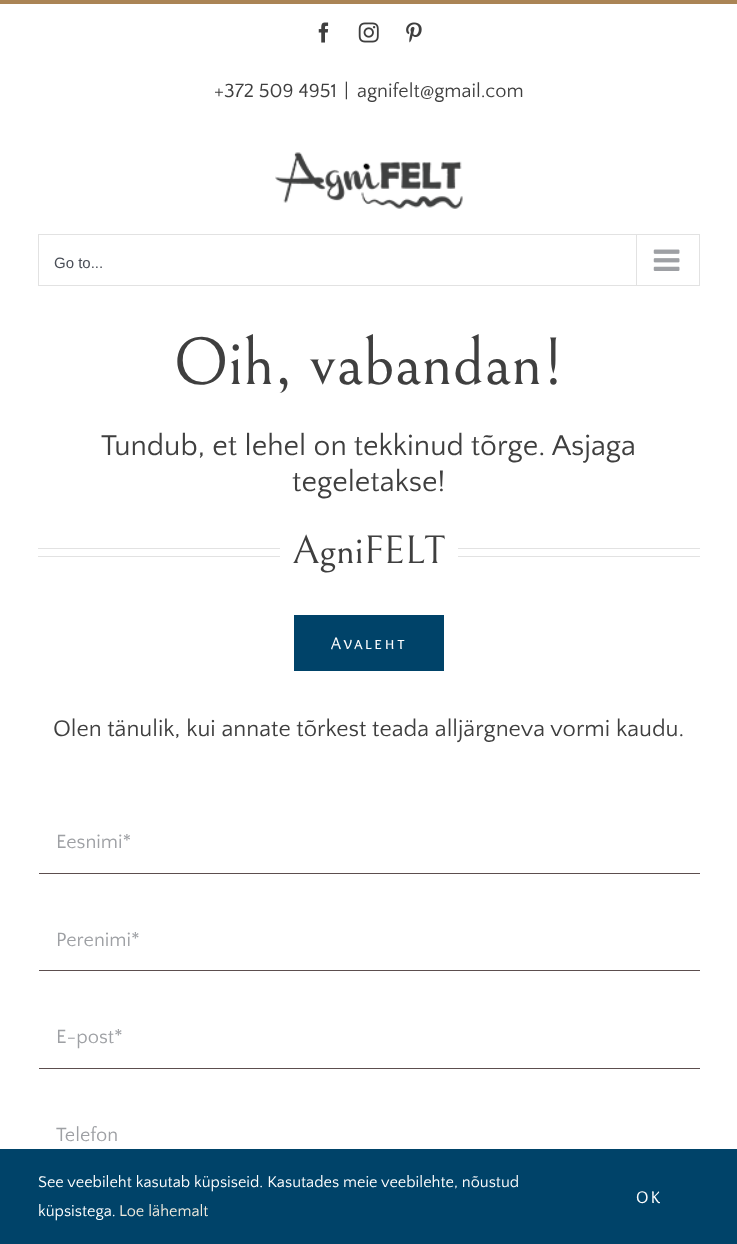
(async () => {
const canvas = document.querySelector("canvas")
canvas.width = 737
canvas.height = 1244
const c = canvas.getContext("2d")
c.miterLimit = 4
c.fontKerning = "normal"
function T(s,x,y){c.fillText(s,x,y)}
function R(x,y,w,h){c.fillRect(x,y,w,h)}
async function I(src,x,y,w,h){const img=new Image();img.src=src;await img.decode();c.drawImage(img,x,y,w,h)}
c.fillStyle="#fff"
R(0,0,737,1244)
c.fillStyle="#aa8455"
R(0,0,737,4)
await I("1.png",318,22,11,21)
await I("2.png",358,22,21,21)
await I("3.png",406,22,16,21)
c.font="20px Quattrocento Sans"
c.fillStyle="#3f3f3f"
T("+372 509 4951",214,97)
T("|",344,97)
T("agnifelt@gmail.com",357,97)
await I("4.png",275,152,188,57)
c.strokeStyle="#e2e2e2"
c.strokeRect(38.5,234.5,661,51)
c.font="15px Liberation Sans"
c.fillStyle="#4a4e57"
T("Go to...",54,268)
c.fillStyle="#e2e2e2"
R(636,235,1,50)
await I("5.png",653,249,27,22)
c.font="67.5px Bellefair"
c.fillStyle="#3f3f3f"
T("Oih, vabandan!",173,384)
c.font="30px Quattrocento Sans"
T("Tundub, et lehel on tekkinud tõrge. Asjaga",101,455)
T("tegeletakse!",292,491)
c.fillStyle="#e2e2e2"
R(38,548,242,1)
R(38,556,242,1)
c.font="40px Bellefair"
c.fillStyle="#3f3f3f"
T("AgniFELT",292,563)
c.fillStyle="#e2e2e2"
R(458,548,242,1)
R(458,556,242,1)
c.fillStyle="#004369"
R(294,615,150,56)
c.letterSpacing="2.5px"
c.font="17.5px Overlock SC"
c.fillStyle="#fff"
T("Avaleht",331,649)
c.letterSpacing="0px"
c.font="23.75px Quattrocento Sans"
c.fillStyle="#3f3f3f"
T("Olen tänulik, kui annate tõrkest teada alljärgneva vormi kaudu.",53,736)
c.fillStyle="#5c4e4e"
R(39,873,661,1)
c.font="20px Quattrocento Sans"
c.fillStyle="#9ea0a4"
T("Eesnimi*",56,848)
c.fillStyle="#5c4e4e"
R(39,970,661,1)
c.fillStyle="#9ea0a4"
T("Perenimi*",56,946)
c.fillStyle="#5c4e4e"
R(39,1068,661,1)
c.fillStyle="#9ea0a4"
T("E-post*",56,1043)
T("Telefon",56,1141)
c.fillStyle="#004369"
R(0,1149,737,95)
c.font="16.25px Quattrocento Sans"
c.fillStyle="#fff"
T("See veebileht kasutab küpsiseid. Kasutades meie veebilehte, nõustud",38,1187)
T("küpsistega.",38,1216)
c.fillStyle="#efeadd"
T("Loe lähemalt",119,1216)
c.letterSpacing="2.5px"
c.font="17.5px Overlock SC"
c.fillStyle="#fff"
T("OK",636,1203)
})()
